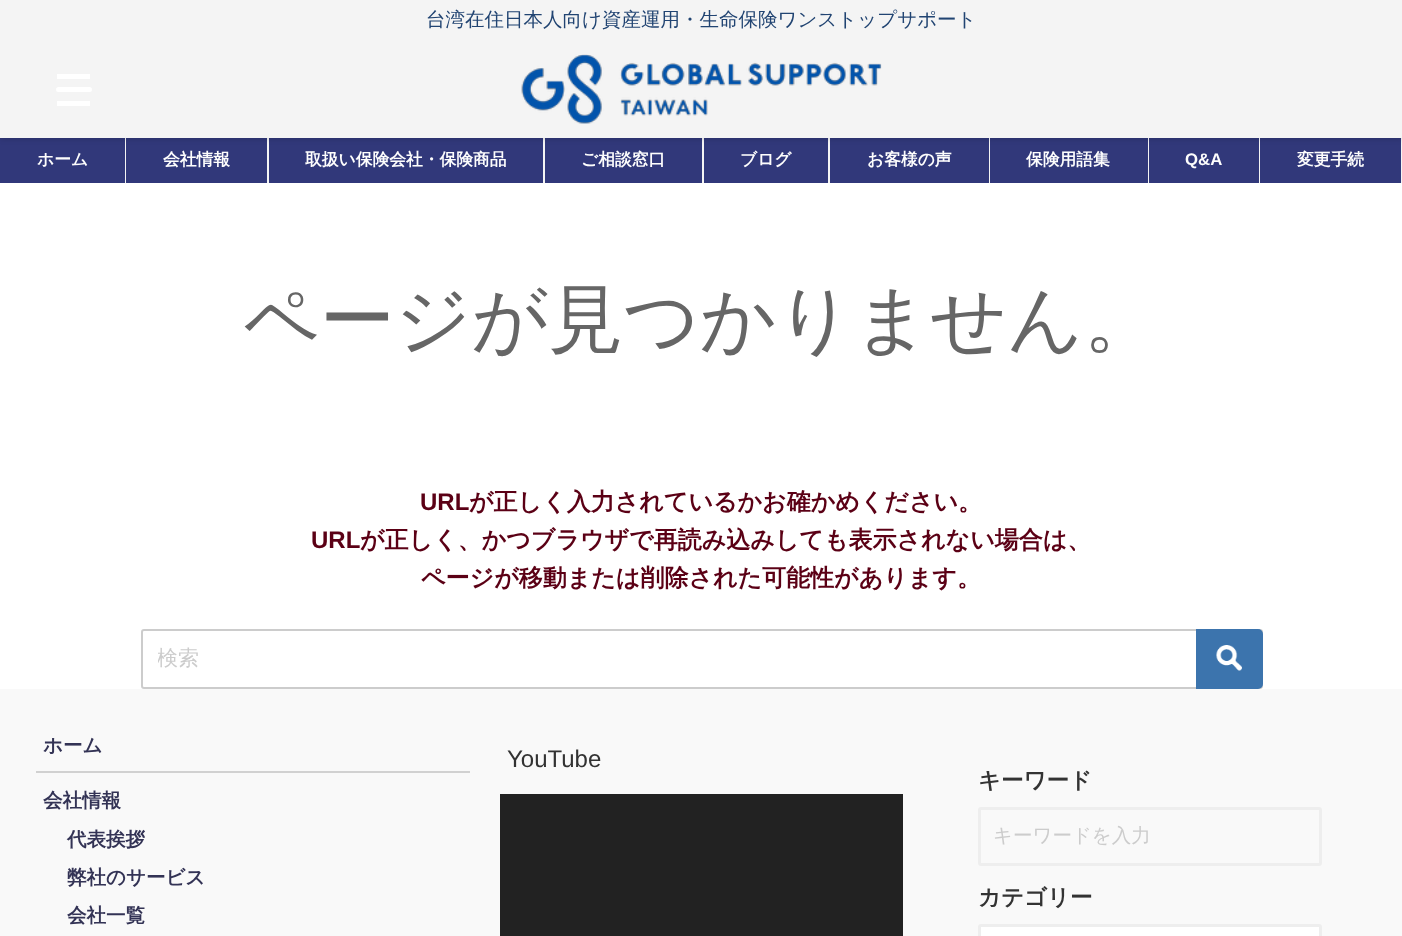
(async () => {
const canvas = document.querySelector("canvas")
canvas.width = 1402
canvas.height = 936
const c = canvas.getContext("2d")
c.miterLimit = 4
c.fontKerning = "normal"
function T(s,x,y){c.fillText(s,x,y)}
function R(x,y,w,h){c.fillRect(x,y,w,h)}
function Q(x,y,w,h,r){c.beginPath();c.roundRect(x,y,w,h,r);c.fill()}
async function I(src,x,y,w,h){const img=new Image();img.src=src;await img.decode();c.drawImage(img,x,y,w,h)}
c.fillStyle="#fff"
R(0,0,1402,936)
c.fillStyle="#f4f4f4"
R(125,138,1277,45)
c.fillStyle="#31387a"
R(0,138,125,45)
R(126,138,141,45)
R(269,138,274,45)
R(545,138,157,45)
R(704,138,124,45)
R(830,138,159,45)
R(990,138,158,45)
R(1149,138,110,45)
R(1260,138,141,45)
c.fillStyle="#00000033"
c.filter="blur(3px)"
c.beginPath()
c.rect(0,0,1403,138)
c.fill()
c.filter="none"
c.fillStyle="#f4f4f4"
R(0,0,1402,138)
c.font="500 19.5px WenQuanYi Zen Hei"
c.fillStyle="#214472"
T("台湾在住日本人向け資産運用・生命保険ワンストップサポート",426,26)
c.fillStyle="#fff"
R(57,74,33,5)
Q(56,87,36,5,2.5)
R(57,101,33,5)
await I("1.png",521,54,361,70)
c.font="bold 16.75px WenQuanYi Zen Hei"
c.fillStyle="#fdfdfd"
T("ホーム",37,165)
T("会社情報",163,165)
T("取扱い保険会社・保険商品",305,165)
T("ご相談窓口",581,165)
T("ブログ",740,165)
T("お客様の声",867,165)
T("保険用語集",1026,165)
c.font="bold 16.75px Liberation Sans"
T("Q&A",1185,165)
c.font="bold 16.75px WenQuanYi Zen Hei"
T("変更手続",1297,165)
c.font="500 75px WenQuanYi Zen Hei"
c.fillStyle="#666"
T("ページが見つかりません。",243,345)
c.font="bold 24px Liberation Sans"
c.fillStyle="#5b0015"
T("URL",420,510)
c.font="bold 24px WenQuanYi Zen Hei"
T("が正しく入力されているかお確かめください。",469,510)
c.font="bold 24px Liberation Sans"
T("URL",311,548)
c.font="bold 24px WenQuanYi Zen Hei"
T("が正しく、かつブラウザで再読み込みしても表示されない場合は、",360,548)
T("ページが移動または削除された可能性があります。",421,586)
c.beginPath()
c.roundRect(142,630,1120,58,2)
c.strokeStyle="#ccc"
c.lineWidth=2
c.stroke()
c.save()
c.beginPath()
c.rect(158,647,1029,27)
c.clip()
c.font="500 21px WenQuanYi Zen Hei"
c.fillStyle="#ccc"
T("検索",157,665)
c.restore()
c.fillStyle="#3c74ad"
c.beginPath()
c.roundRect(1196,629,67,60,[0,5,5,0])
c.fill()
await I("2.png",1216,645,26,26)
c.fillStyle="#f9f9f9"
R(0,689,1402,247)
c.fillStyle="#d1d1d1"
R(36,771,434,2)
c.font="bold 19.5px WenQuanYi Zen Hei"
c.fillStyle="#335"
T("ホーム",43,752)
T("会社情報",43,807)
T("代表挨拶",67,846)
T("弊社のサービス",67,884)
T("会社一覧",67,922)
c.font="24px Liberation Sans"
c.fillStyle="#333"
T("YouTube",507,767)
c.fillStyle="#222"
R(500,794,403,142)
c.font="bold 22.5px WenQuanYi Zen Hei"
c.fillStyle="#333"
T("キーワード",978,788)
c.beginPath()
c.roundRect(979.5,808.5,341,56,1.5)
c.strokeStyle="#eee"
c.lineWidth=3
c.stroke()
c.font="500 19.5px WenQuanYi Zen Hei"
c.fillStyle="#ccc"
T("キーワードを入力",993,842)
c.font="bold 22.5px WenQuanYi Zen Hei"
c.fillStyle="#333"
T("カテゴリー",978,905)
c.fillStyle="#fff"
c.beginPath()
c.roundRect(979.5,925.5,341,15,1.5)
c.fill()
c.stroke()
})()
